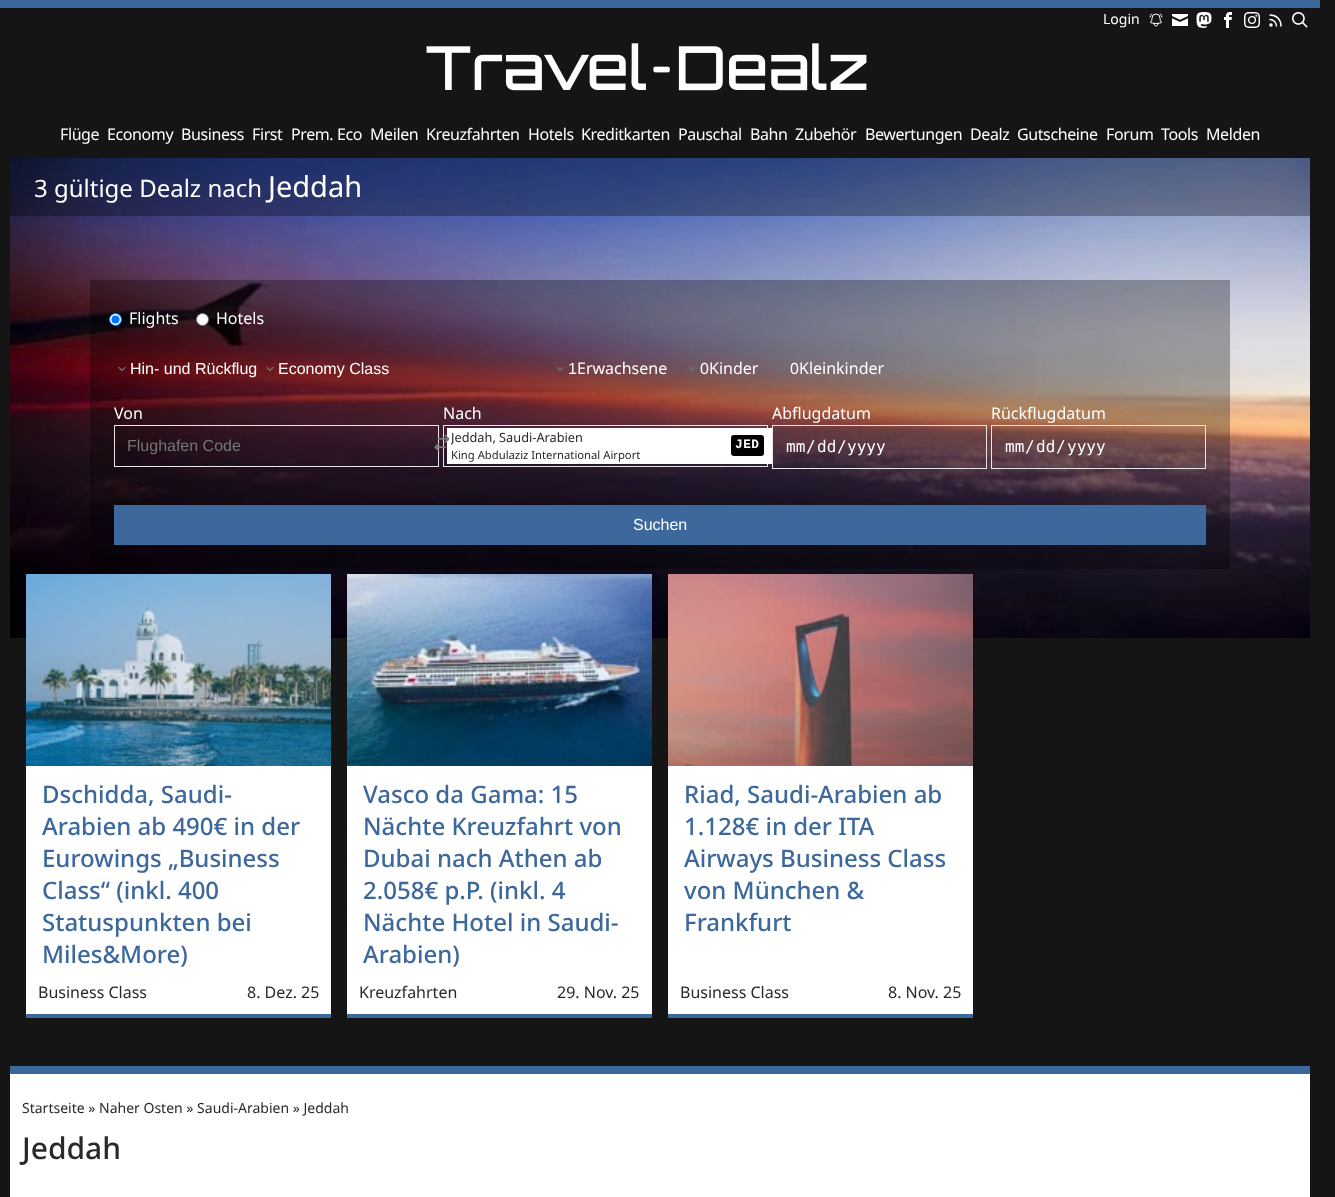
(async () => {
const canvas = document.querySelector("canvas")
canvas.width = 1335
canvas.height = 1197
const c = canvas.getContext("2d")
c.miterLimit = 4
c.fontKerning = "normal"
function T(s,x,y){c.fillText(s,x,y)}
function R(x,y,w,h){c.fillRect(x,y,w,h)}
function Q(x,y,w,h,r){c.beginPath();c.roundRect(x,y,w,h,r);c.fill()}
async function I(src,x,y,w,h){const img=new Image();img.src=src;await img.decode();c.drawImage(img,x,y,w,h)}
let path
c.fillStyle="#151515"
R(0,0,1335,1197)
c.fillStyle="#3d689c"
R(0,0,1320,8)
c.font="14px Noto Sans"
c.fillStyle="#fff"
T("Login",1103,24)
await I("1.png",1149,13,14,14)
await I("2.png",1172,14,16,12)
await I("3.png",1196,12,16,16)
await I("4.png",1224,12,8,16)
await I("5.png",1244,12,16,16)
await I("6.png",1269,14,13,13)
await I("7.png",1292,12,16,16)
await I("8.png",426,43,441,48)
c.letterSpacing="-0.4px"
c.font="16px Noto Sans"
T("Flüge",60,140)
T("Economy",107,140)
T("Business",181,140)
T("First",252,140)
T("Prem. Eco",291,140)
T("Meilen",370,140)
T("Kreuzfahrten",426,140)
T("Hotels",528,140)
T("Kreditkarten",581,140)
T("Pauschal",678,140)
T("Bahn",750,140)
T("Zubehör",795,140)
T("Bewertungen",865,140)
T("Dealz",970,140)
T("Gutscheine",1017,140)
T("Forum",1106,140)
T("Tools",1161,140)
T("Melden",1206,140)
await I("9.png",10,158,1300,480)
c.fillStyle="#0000004d"
R(10,158,1300,58)
c.letterSpacing="0px"
c.font="24px Noto Sans"
c.fillStyle="#fff"
T("3 gültige Dealz nach",34,197)
c.font="29px Noto Sans"
T("Jeddah",268,197)
c.fillStyle="#0000004d"
R(90,280,1140,289)
c.fillStyle="#fff"
c.beginPath()
c.arc(115.5,319.5,6,0,7)
c.fill()
c.strokeStyle="#0075ff"
c.stroke()
c.fillStyle="#0075ff"
c.beginPath()
c.arc(115.5,319.5,4,0,7)
c.fill()
c.font="16px Noto Sans"
c.fillStyle="#fff"
T("Flights",129,324)
c.beginPath()
c.arc(202.5,319.5,6,0,7)
c.fill()
c.strokeStyle="#767676"
c.stroke()
T("Hotels",216,324)
path = new Path2D("M119 367.5l3 3l3-3")
c.strokeStyle="#6b7280"
c.lineWidth=1.2
c.lineCap="round"
c.lineJoin="round"
c.stroke(path)
c.font="16px Liberation Sans"
T("Hin- und Rückflug",130,374)
path = new Path2D("M267 367.5l3 3l3-3")
c.stroke(path)
T("Economy Class",278,374)
path = new Path2D("M557 367.5l3 3l3-3")
c.stroke(path)
T("1",568,374)
c.font="16px Noto Sans"
T("Erwachsene",577,374)
path = new Path2D("M689 367.5l3 3l3-3")
c.stroke(path)
c.font="16px Liberation Sans"
T("0",700,374)
c.font="16px Noto Sans"
T("Kinder",709,374)
path = new Path2D("M779 367.5l3 3l3-3")
c.stroke(path)
c.font="16px Liberation Sans"
T("0",790,374)
c.font="16px Noto Sans"
T("Kleinkinder",799,374)
T("Von",114,419)
c.strokeStyle="#e6e6e6"
c.lineWidth=1
c.lineJoin="miter"
c.strokeRect(114.5,425.5,324,41)
c.font="16px Liberation Sans"
c.fillStyle="#757575"
T("Flughafen Code",127,451)
c.font="16px Noto Sans"
c.fillStyle="#fff"
T("Nach",443,419)
c.strokeRect(443.5,425.5,324,41)
R(447,428,325,36)
await I("10.png",434,434,16,18)
c.save()
c.beginPath()
c.rect(451,428,188,36)
c.clip()
c.font="12.75px Noto Sans"
c.fillStyle="#292929"
T("Jeddah, Saudi-Arabien",451,442)
c.restore()
c.font="11.25px Noto Sans"
c.fillStyle="#292929"
T("King Abdulaziz International Airport",451,459)
c.fillStyle="#000"
Q(731,435,33,21,3)
c.letterSpacing="0.5px"
c.font="bold 12.75px Liberation Mono"
c.fillStyle="#fff"
T("JED",735,448)
c.letterSpacing="0px"
c.font="16px Noto Sans"
T("Abflugdatum",772,419)
c.strokeRect(772.5,425.5,214,43)
c.font="16px DejaVu Sans Mono"
T("mm",786,452)
T("/",806,452)
T("dd",817,452)
T("/",837,452)
T("yyyy",847,452)
c.font="16px Noto Sans"
T("Rückflugdatum",991,419)
c.strokeRect(991.5,425.5,214,43)
c.font="16px DejaVu Sans Mono"
T("mm",1005,452)
T("/",1025,452)
T("dd",1036,452)
T("/",1056,452)
T("yyyy",1067,452)
c.fillStyle="#3d689c"
R(114,505,1092,40)
c.font="16px Liberation Sans"
c.fillStyle="#fff"
T("Suchen",633,530)
R(26,766,305,248)
c.fillStyle="#3d689c"
R(26,1014,305,4)
await I("11.png",26,574,305,192)
c.font="500 24px Noto Sans"
T("Dschidda, Saudi-",42,803)
T("Arabien ab 490€ in der",42,835)
T("Eurowings „Business",42,867)
T("Class“ (inkl. 400",42,899)
T("Statuspunkten bei",42,931)
T("Miles&More)",42,963)
c.font="16px Noto Sans"
c.fillStyle="#292929"
T("Business Class",38,998)
T("8. Dez. 25",247,998)
c.fillStyle="#fff"
R(347,766,305,248)
c.fillStyle="#3d689c"
R(347,1014,305,4)
await I("12.png",347,574,305,192)
c.font="500 24px Noto Sans"
T("Vasco da Gama: 15",363,803)
T("Nächte Kreuzfahrt von",363,835)
T("Dubai nach Athen ab",363,867)
T("2.058€ p.P. (inkl. 4",363,899)
T("Nächte Hotel in Saudi-",363,931)
T("Arabien)",363,963)
c.font="16px Noto Sans"
c.fillStyle="#292929"
T("Kreuzfahrten",359,998)
T("29. Nov. 25",557,998)
c.fillStyle="#fff"
R(668,766,305,248)
c.fillStyle="#3d689c"
R(668,1014,305,4)
await I("13.png",668,574,305,192)
c.font="500 24px Noto Sans"
T("Riad, Saudi-Arabien ab",684,803)
T("1.128€ in der ITA",684,835)
T("Airways Business Class",684,867)
T("von München &",684,899)
T("Frankfurt",684,931)
c.font="16px Noto Sans"
c.fillStyle="#292929"
T("Business Class",680,998)
T("8. Nov. 25",888,998)
c.fillStyle="#fff"
R(10,1074,1300,123)
c.fillStyle="#3d689c"
R(10,1066,1300,8)
c.font="14px Noto Sans"
c.fillStyle="#292929"
T("Startseite » Naher Osten » Saudi-Arabien » Jeddah",22,1113)
c.font="500 30px Noto Sans"
T("Jeddah",22,1159)
})()
